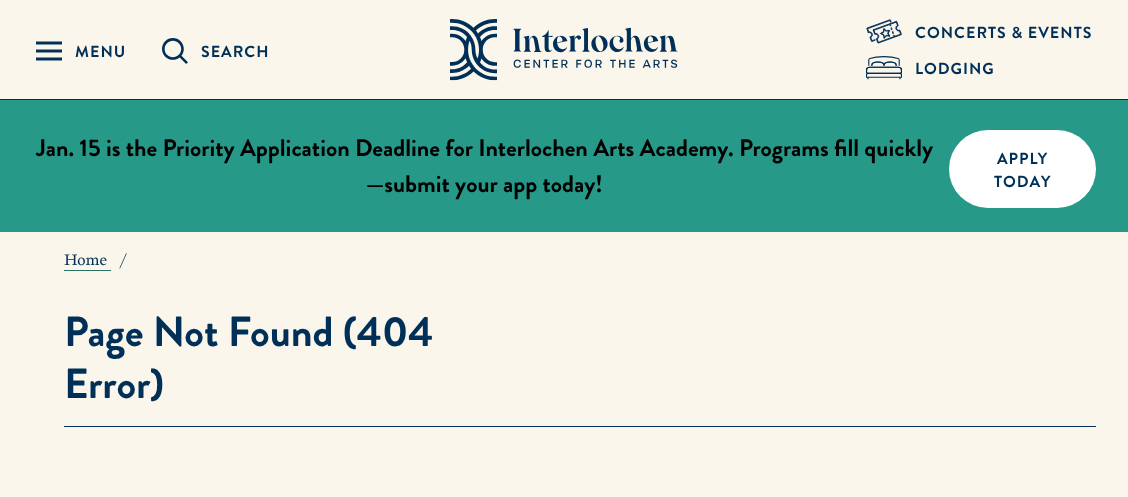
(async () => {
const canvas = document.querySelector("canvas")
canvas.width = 1128
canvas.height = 497
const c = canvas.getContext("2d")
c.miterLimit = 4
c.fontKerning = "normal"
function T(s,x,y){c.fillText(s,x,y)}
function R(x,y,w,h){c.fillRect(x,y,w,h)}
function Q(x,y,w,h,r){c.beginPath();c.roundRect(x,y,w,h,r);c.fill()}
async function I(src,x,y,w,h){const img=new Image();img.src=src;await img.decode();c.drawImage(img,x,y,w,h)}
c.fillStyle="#fbf6ec"
R(0,0,1128,497)
c.fillStyle="#003057"
R(0,99,1128,1)
await I("1.png",36,41,26,20)
c.letterSpacing="1px"
c.font="bold 16px Brandon Grotesque"
T("MENU",75,57)
await I("2.png",162,38,26,26)
T("SEARCH",201,57)
await I("3.png",450,19,228,62)
await I("4.png",866,19,36,25)
T("CONCERTS & EVENTS",915,38)
await I("5.png",866,56,36,24)
T("LODGING",915,74)
c.fillStyle="#279989"
R(0,100,1128,132)
c.letterSpacing="0px"
c.font="bold 24px Brandon Grotesque"
c.fillStyle="#000"
T("Jan. 15 is the Priority Application Deadline for Interlochen Arts Academy. Programs fill quickly",36,156)
T("—submit your app today!",366,192)
c.fillStyle="#fff"
Q(949,130,147,78,39)
c.letterSpacing="1px"
c.font="bold 16px Brandon Grotesque"
c.fillStyle="#003057"
T("APPLY",997,164)
T("TODAY",994,187)
c.letterSpacing="0px"
c.font="16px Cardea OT"
T("Home",64,265)
c.fillStyle="#2a7361"
R(64,270,47,1)
c.fillStyle="#003057"
T("/",119,265)
c.font="bold 42px Brandon Grotesque"
T("Page Not Found (404",64,346)
T("Error)",64,398)
R(64,426,1032,1)
})()
